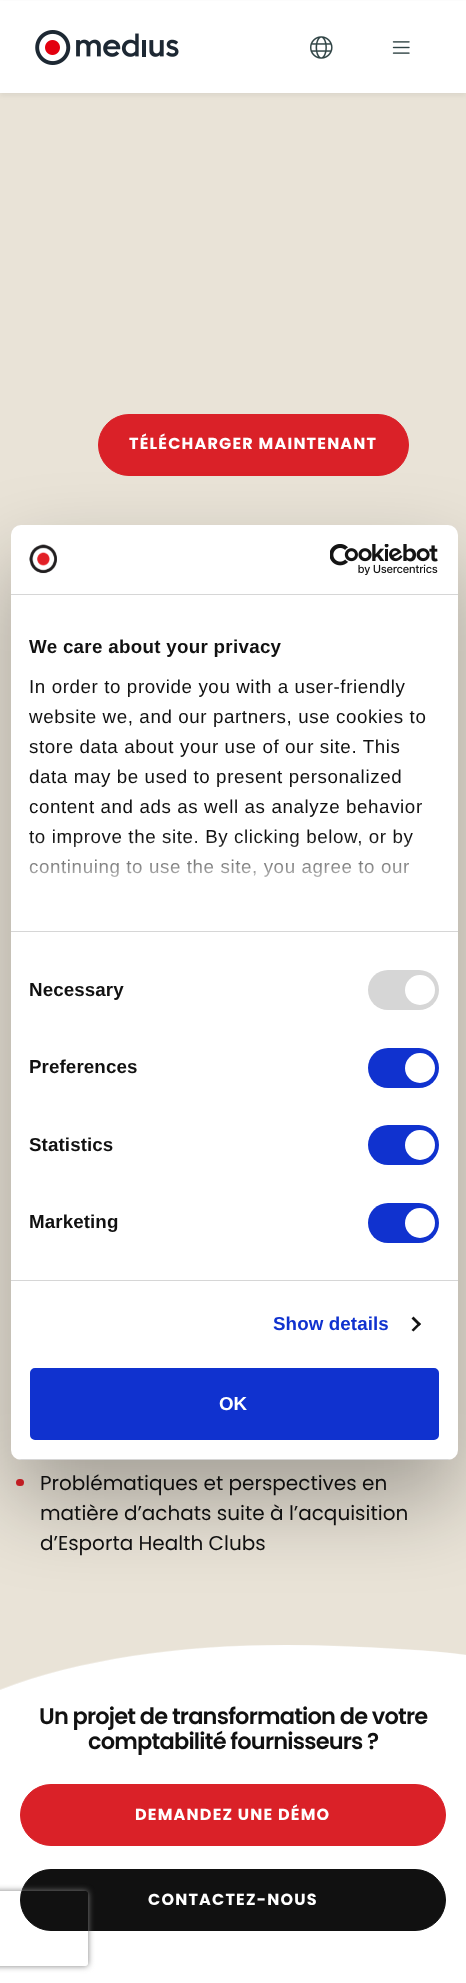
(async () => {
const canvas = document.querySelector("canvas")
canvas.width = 466
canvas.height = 1983
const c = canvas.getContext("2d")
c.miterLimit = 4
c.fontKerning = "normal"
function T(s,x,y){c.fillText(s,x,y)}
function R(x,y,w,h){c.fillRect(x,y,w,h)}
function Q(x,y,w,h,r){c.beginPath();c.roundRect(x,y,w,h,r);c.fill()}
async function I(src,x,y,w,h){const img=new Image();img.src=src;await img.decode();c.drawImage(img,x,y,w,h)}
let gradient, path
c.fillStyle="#fff"
R(0,0,466,1983)
c.fillStyle="#e9e3d7"
R(0,93,466,1597)
c.fillStyle="#11111112"
c.filter="blur(2.5px)"
c.beginPath()
c.rect(0,3,466,92)
c.fill()
c.filter="none"
c.fillStyle="#fff"
R(0,1,466,92)
await I("1.png",35,30,144,35)
await I("2.png",310,36,23,23)
await I("3.png",392,41,18,13)
c.fillStyle="#da2128"
c.beginPath()
c.roundRect(98.5,414.5,310,61,30.5)
c.fill()
c.strokeStyle="#da2128"
c.stroke()
c.letterSpacing="1.2px"
c.font="bold 16px Poppins"
c.fillStyle="#fff"
T("TÉLÉCHARGER MAINTENANT",129,449)
c.fillStyle="#da2128"
Q(16,1479,8,7,3.5)
c.letterSpacing="0px"
c.font="20px Poppins"
c.fillStyle="#111"
T("Problématiques et perspectives en",40,1490)
T("matière d’achats suite à l’acquisition",40,1520)
T("d’Esporta Health Clubs",40,1550)
c.fillStyle="#fff"
path = new Path2D("M466 1705v-50c-36-5-80-7-132-9c-122-5-244 9-334 44v15z")
c.fill(path)
c.save()
c.beginPath()
c.rect(0,1645,466,60)
c.clip()
path = new Path2D("M466 1705v-50c-36-4.5-80-7-132-9c-121.5-5-243.5 8.5-334 43.5v15.5z")
c.strokeStyle="#fff"
c.lineWidth=0.3
c.stroke(path)
c.restore()
c.letterSpacing="-0.8px"
c.font="600 22.5px Poppins"
c.fillStyle="#111"
T("Un projet de transformation de votre",39,1724)
T("comptabilité fournisseurs ?",88,1749)
c.fillStyle="#da2128"
c.beginPath()
c.roundRect(20.5,1784.5,425,61,30.5)
c.fill()
c.stroke()
c.letterSpacing="1.2px"
c.font="bold 16px Poppins"
c.fillStyle="#fff"
T("DEMANDEZ UNE DÉMO",135,1820)
c.fillStyle="#111"
c.beginPath()
c.roundRect(20.5,1869.5,425,61,30.5)
c.fill()
c.strokeStyle="#111"
c.stroke()
c.fillStyle="#fff"
T("CONTACTEZ-NOUS",148,1905)
c.fillStyle="#0000004d"
c.filter="blur(42.5px)"
c.beginPath()
c.roundRect(11,565,447,935,10)
c.fill()
c.filter="none"
c.fillStyle="#fff"
Q(11,525,447,935,10)
c.fillStyle="#d6d6d6"
R(11,594,447,1)
await I("4.png",29,544,28,30)
await I("5.png",330,544,108,31)
R(11,931,447,1)
c.letterSpacing="0.3px"
c.font="bold 18.75px Liberation Sans"
c.fillStyle="#111"
T("We care about your privacy",29,653)
c.letterSpacing="0.6px"
c.font="18.75px Liberation Sans"
T("In order to provide you with a user-friendly",29,693)
T("website we, and our partners, use cookies to",29,723)
T("store data about your use of our site. This",29,753)
T("data may be used to present personalized",29,783)
T("content and ads as well as analyze behavior",29,813)
T("to improve the site. By clicking below, or by",29,843)
T("continuing to use the site, you agree to our",29,873)
gradient = c.createLinearGradient(226,931,226,837)
gradient.addColorStop(0,"#fff")
gradient.addColorStop(.5,"#ffffffcc")
gradient.addColorStop(1,"#ffffff00")
c.fillStyle = gradient
R(29,838,383,39)
c.fillStyle="#d6d6d6"
R(11,1280,447,1)
c.letterSpacing="0.1px"
c.font="bold 18.75px Liberation Sans"
c.fillStyle="#111"
T("Necessary",29,996)
c.fillStyle="#d6d6d6"
Q(368,970,71,40,20)
c.fillStyle="#fff"
c.beginPath()
c.arc(420,990,15,0,7)
c.fill()
c.fillStyle="#111"
T("Preferences",29,1073)
c.fillStyle="#1032cf"
Q(368,1048,71,40,20)
c.fillStyle="#fff"
c.beginPath()
c.arc(420,1068,15,0,7)
c.fill()
c.fillStyle="#111"
T("Statistics",29,1151)
c.fillStyle="#1032cf"
Q(368,1125,71,40,20)
c.fillStyle="#fff"
c.beginPath()
c.arc(420,1145,15,0,7)
c.fill()
c.fillStyle="#111"
T("Marketing",29,1228)
c.fillStyle="#1032cf"
Q(368,1203,71,40,20)
c.fillStyle="#fff"
c.beginPath()
c.arc(420,1223,15,0,7)
c.fill()
c.fillStyle="#1032cf"
T("Show details",273,1330)
c.fillStyle="#141414"
path = new Path2D("M413.5 1316.5l7.5 7.5l-2 2l-7.5-7.5z")
c.fill(path)
path = new Path2D("M419 1322.5l2 1.5l-7.5 7.5l-2-1.5z")
c.fill(path)
c.save()
c.beginPath()
c.roundRect(11,525,447,935,10)
c.clip()
c.fillStyle="#d6d6d6"
R(11,1459,447,1)
c.restore()
c.fillStyle="#1032cf"
c.beginPath()
c.roundRect(31.5,1369.5,406,69,3.5)
c.fill()
c.strokeStyle="#1032cf"
c.lineWidth=3
c.stroke()
c.letterSpacing="0px"
c.fillStyle="#fff"
T("OK",219,1410)
c.save()
path = new Path2D("M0 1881h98v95h-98zm-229.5 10h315c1.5 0 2.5 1 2.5 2.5v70c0 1.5-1 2.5-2.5 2.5h-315c-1.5 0-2.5-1-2.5-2.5v-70c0-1.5 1-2.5 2.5-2.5z")
c.clip(path,"evenodd")
c.fillStyle="#808080"
c.filter="blur(3px)"
c.beginPath()
c.roundRect(-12,1891,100,75,2.5)
c.fill()
c.filter="none"
c.restore()
})()
